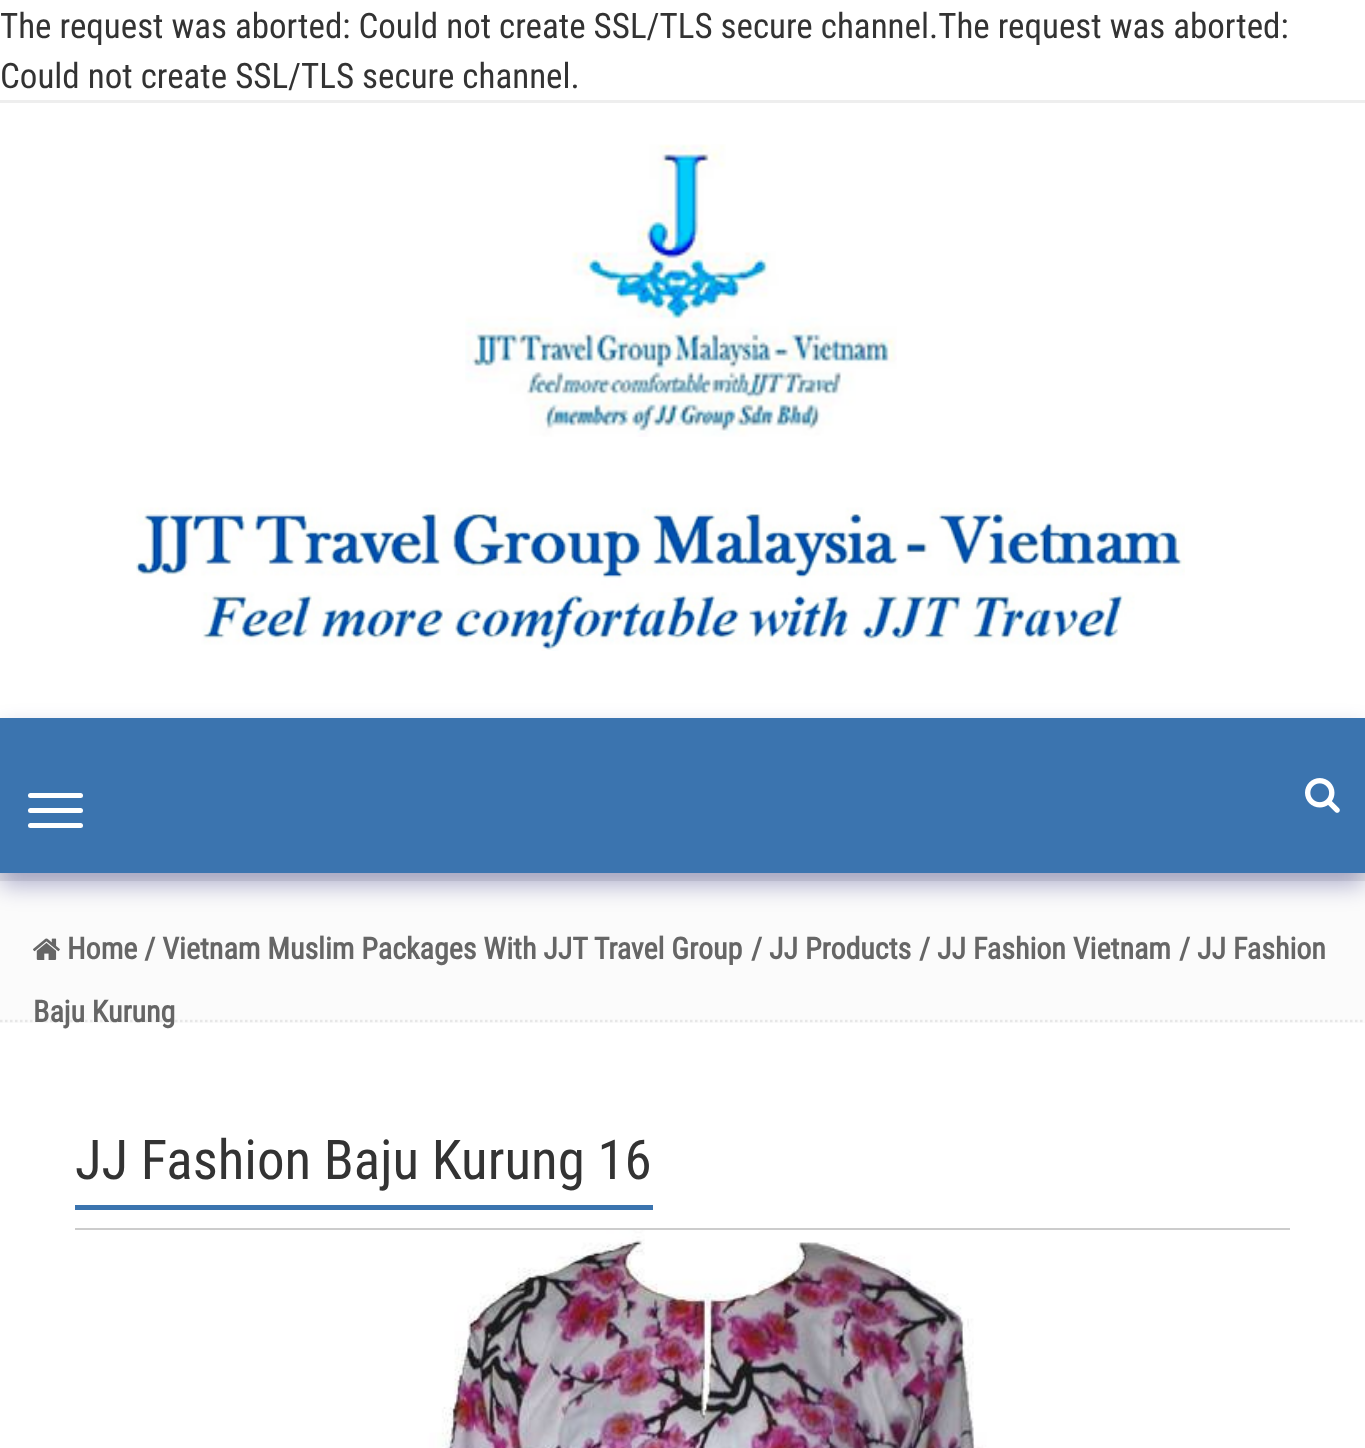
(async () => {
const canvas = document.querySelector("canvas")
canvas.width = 1365
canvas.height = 1448
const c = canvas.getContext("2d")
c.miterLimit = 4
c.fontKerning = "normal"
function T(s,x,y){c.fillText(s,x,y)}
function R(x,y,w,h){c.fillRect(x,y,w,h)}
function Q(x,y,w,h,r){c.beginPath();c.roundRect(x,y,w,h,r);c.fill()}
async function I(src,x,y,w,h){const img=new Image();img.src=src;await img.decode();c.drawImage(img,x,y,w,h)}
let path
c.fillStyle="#fff"
R(0,0,1365,1448)
c.font="35px Roboto Condensed"
c.fillStyle="#333"
T("The request was aborted: Could not create SSL/TLS secure channel.The request was aborted:",0,38)
T("Could not create SSL/TLS secure channel.",0,88)
c.fillStyle="#eee"
R(0,100,1365,3)
await I("1.png",465,144,432,293)
await I("2.png",136,507,1049,144)
c.fillStyle="#fbfbfb"
R(0,881,1365,142)
c.fillStyle="#e7e7e7"
R(0,873,1365,8)
c.fillStyle="#0000644d"
c.filter="blur(12.5px)"
c.beginPath()
c.rect(0,730,1365,155)
c.fill()
c.filter="none"
c.fillStyle="#3b74af"
R(0,718,1365,155)
c.fillStyle="#fff"
Q(28,793,55,5,2.5)
Q(28,808,55,5,2.5)
Q(28,823,55,5,2.5)
await I("3.png",1305,778,35,35)
path = new Path2D("M0 1021h1365")
c.strokeStyle="#e7e7e7"
c.lineWidth=2.5
c.setLineDash([2.5,2.5])
c.stroke(path)
await I("4.png",33,938,27,22)
c.font="bold 30px Roboto Condensed"
c.fillStyle="#666"
T("Home / Vietnam Muslim Packages With JJT Travel Group",67,959)
T("/ JJ Products",751,959)
T("/ JJ Fashion Vietnam",919,959)
T("/ JJ Fashion",1179,959)
T("Baju Kurung",33,1022)
c.fillStyle="#ccc"
R(75,1228,1215,2)
c.font="55px Roboto Condensed"
c.fillStyle="#333"
T("JJ Fashion Baju Kurung 16",75,1179)
c.fillStyle="#3b74af"
R(75,1205,578,5)
await I("5.png",75,1230,1215,218)
})()
